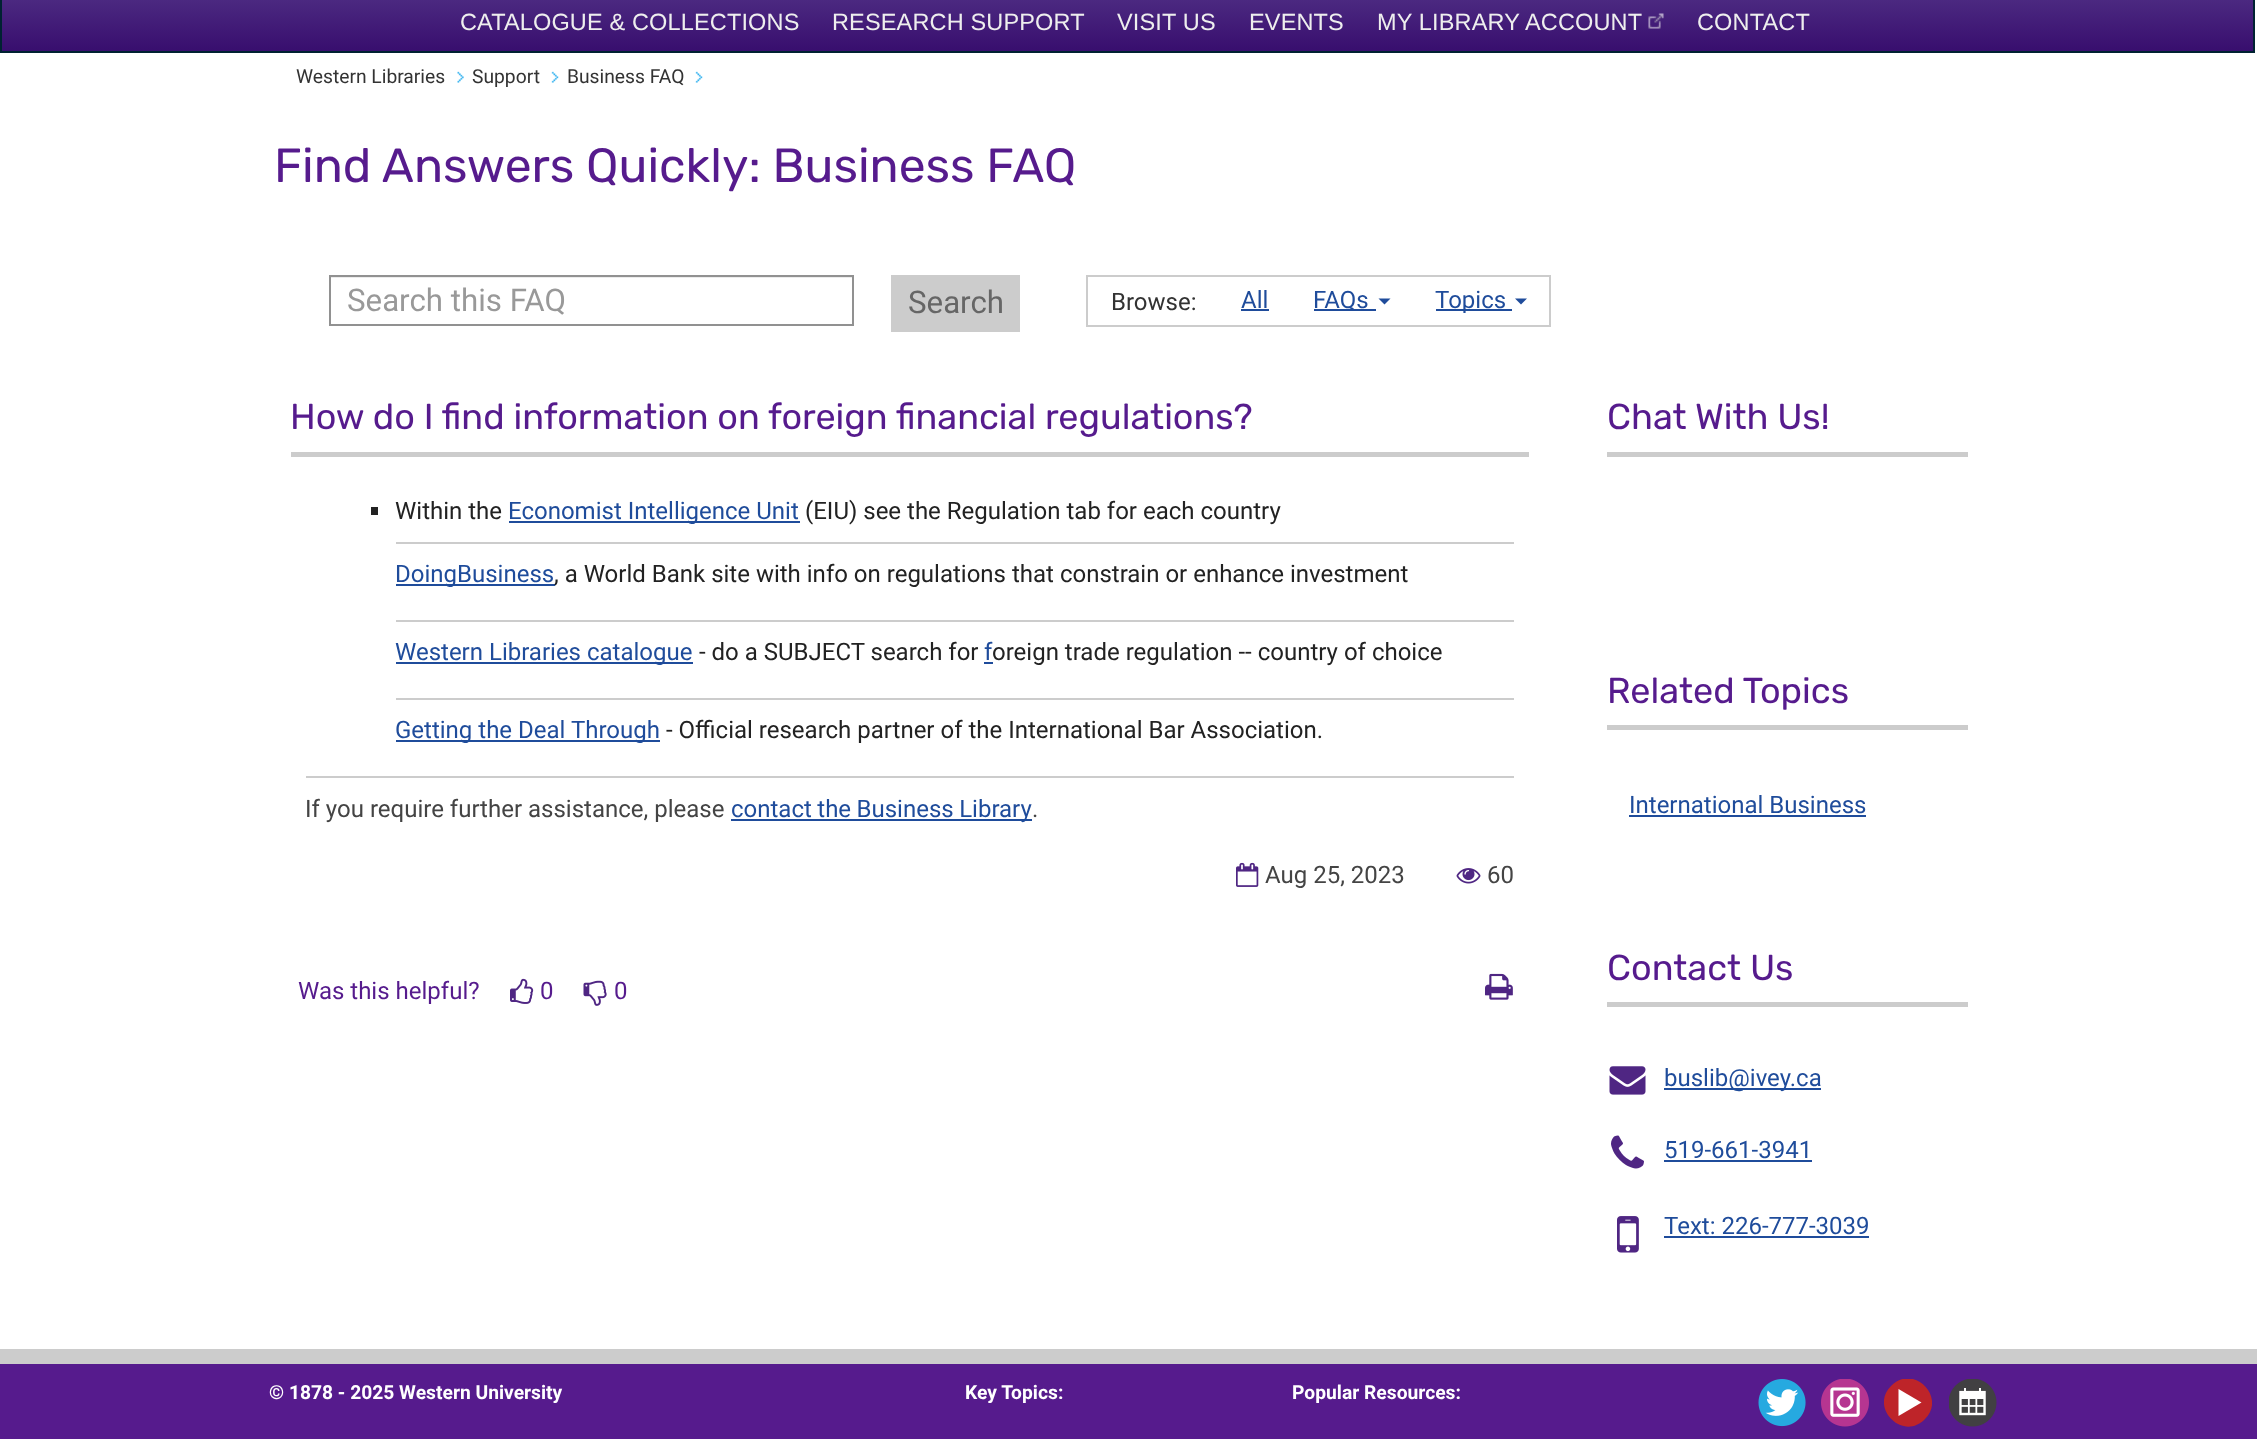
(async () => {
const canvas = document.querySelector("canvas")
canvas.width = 2257
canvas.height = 1439
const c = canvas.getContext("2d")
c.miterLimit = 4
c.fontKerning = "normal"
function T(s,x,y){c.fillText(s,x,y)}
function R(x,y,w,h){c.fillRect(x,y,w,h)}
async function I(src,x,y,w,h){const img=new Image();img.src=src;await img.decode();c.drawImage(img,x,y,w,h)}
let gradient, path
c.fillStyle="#fff"
R(0,0,2257,1439)
gradient = c.createLinearGradient(1.5,-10,1.5,51)
gradient.addColorStop(0,"#4f2e84")
gradient.addColorStop(1,"#380e6e")
c.fillStyle = gradient
R(2,0,2251,51)
c.strokeStyle="#002232"
c.lineWidth=2
c.strokeRect(1,-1,2253,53)
c.letterSpacing="0.15px"
c.font="23.5px Liberation Sans"
c.fillStyle="#eee"
T("CATALOGUE & COLLECTIONS",460,30)
T("RESEARCH SUPPORT",832,30)
T("VISIT US",1117,30)
T("EVENTS",1249,30)
await I("1.png",1648,13,16,16)
T("MY LIBRARY ACCOUNT",1377,30)
T("CONTACT",1697,30)
await I("2.png",450,71,14,12)
c.letterSpacing="0px"
c.font="19.25px Roboto"
c.fillStyle="#333"
T("Western Libraries",296,83)
await I("3.png",551,71,8,12)
T("Support",472,83)
await I("3.png",695,71,8,12)
T("Business FAQ",567,83)
c.font="48px Rubik"
c.fillStyle="#561b8d"
T("Find Answers Quickly: Business FAQ",274,182)
c.fillStyle="#ececec"
R(330,277,522,1)
c.strokeStyle="#919191"
c.strokeRect(330,276,523,49)
c.font="31.25px Roboto"
c.fillStyle="#999"
T("Search this FAQ",347,311)
c.fillStyle="#ccc"
R(891,275,129,57)
c.fillStyle="#666"
T("Search",908,313)
c.strokeStyle="#ccc"
c.strokeRect(1087,276,463,50)
c.font="24px Roboto"
c.fillStyle="#333"
T("Browse:",1111,310)
c.fillStyle="#1f4c9b"
T("All",1241,308)
R(1241,309,28,2)
R(1314,309,62,2)
T("FAQs",1313,308)
path = new Path2D("M1378.5 298.5h12l-6 6z")
c.fill(path)
R(1436,309,76,2)
T("Topics",1435,308)
path = new Path2D("M1515 298.5h12l-6 6z")
c.fill(path)
c.fillStyle="#ccc"
R(291,452,1238,5)
c.font="36px Rubik"
c.fillStyle="#561b8d"
T("How do I find information on foreign financial regulations?",290,429)
c.fillStyle="#222"
R(371,507,7,8)
c.font="24px Roboto"
T("Within the",395,519)
c.fillStyle="#1f4c9b"
R(509,521,291,2)
T("Economist Intelligence Unit",508,519)
c.fillStyle="#222"
T("(EIU) see the Regulation tab for each country",805,519)
c.fillStyle="#ccc"
R(396,542,1118,2)
c.fillStyle="#1f4c9b"
R(396,584,159,2)
T("DoingBusiness",395,582)
c.fillStyle="#222"
T(", a World Bank site with info on regulations that constrain or enhance investment",554,582)
c.fillStyle="#ccc"
R(396,620,1118,2)
c.fillStyle="#1f4c9b"
R(396,662,297,2)
T("Western Libraries catalogue",395,660)
c.fillStyle="#222"
T("- do a SUBJECT search for",699,660)
c.fillStyle="#1f4c9b"
T("f",984,660)
R(984,662,9,2)
c.fillStyle="#222"
T("oreign trade regulation -- country of choice",992,660)
c.fillStyle="#ccc"
R(396,698,1118,2)
c.fillStyle="#1f4c9b"
R(396,740,264,2)
T("Getting the Deal Through",395,738)
c.fillStyle="#222"
T("- Official research partner of the International Bar Association.",666,738)
c.fillStyle="#ccc"
R(306,776,1208,2)
c.fillStyle="#444"
T("If you require further assistance, please",305,817)
c.fillStyle="#1f4c9b"
R(731,819,301,2)
c.wordSpacing="-0.5px"
T("contact the Business Library",731,817)
c.wordSpacing="0px"
c.fillStyle="#444"
T(".",1032,817)
await I("4.png",1236,862,23,25)
T("Aug 25, 2023",1265,883)
await I("5.png",1456,868,25,16)
T("60",1487,883)
c.fillStyle="#561b8d"
T("Was this helpful?",298,999)
await I("6.png",510,978,24,26)
T("0",540,999)
await I("7.png",583,980,24,26)
T("0",614,999)
await I("8.png",1485,973,28,27)
c.fillStyle="#ccc"
R(1607,452,361,5)
c.font="36px Rubik"
c.fillStyle="#561b8d"
T("Chat With Us!",1607,429)
c.fillStyle="#ccc"
R(1607,725,361,5)
c.fillStyle="#561b8d"
T("Related Topics",1607,703)
c.font="24px Roboto"
c.fillStyle="#1f4c9b"
T("International Business",1629,813)
R(1629,815,237,2)
c.fillStyle="#ccc"
R(1607,1002,361,5)
c.font="36px Rubik"
c.fillStyle="#561b8d"
T("Contact Us",1607,980)
await I("9.png",1609,1066,37,29)
c.fillStyle="#1f4c9b"
R(1664,1088,157,2)
c.font="24px Roboto"
T("buslib@ivey.ca",1664,1086)
await I("10.png",1611,1135,33,34)
T("519-661-3941",1664,1158)
R(1664,1160,148,2)
await I("11.png",1617,1216,22,37)
T("Text: 226-777-3039",1664,1234)
R(1664,1236,205,2)
c.fillStyle="#561b8d"
R(0,1364,2257,75)
c.fillStyle="#ccc"
R(0,1349,2257,15)
c.font="bold 19.25px Roboto"
c.fillStyle="#fff"
T("© 1878 - 2025 Western University",269,1399)
T("Key Topics:",965,1399)
T("Popular Resources:",1292,1399)
await I("12.png",1758,1379,48,48)
await I("13.png",1821,1379,48,48)
c.save()
c.beginPath()
c.rect(1884,1379,48,48)
c.clip()
c.fillStyle="#be2429"
path = new Path2D("M1891 1386c22-23 56 11 34 33c-22 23-56-11-34-33z")
c.fill(path)
c.restore()
await I("14.png",1949,1379,48,48)
path = new Path2D("M1898.5 1389l23 13.5l-23 13.5z")
c.fill(path)
})()
